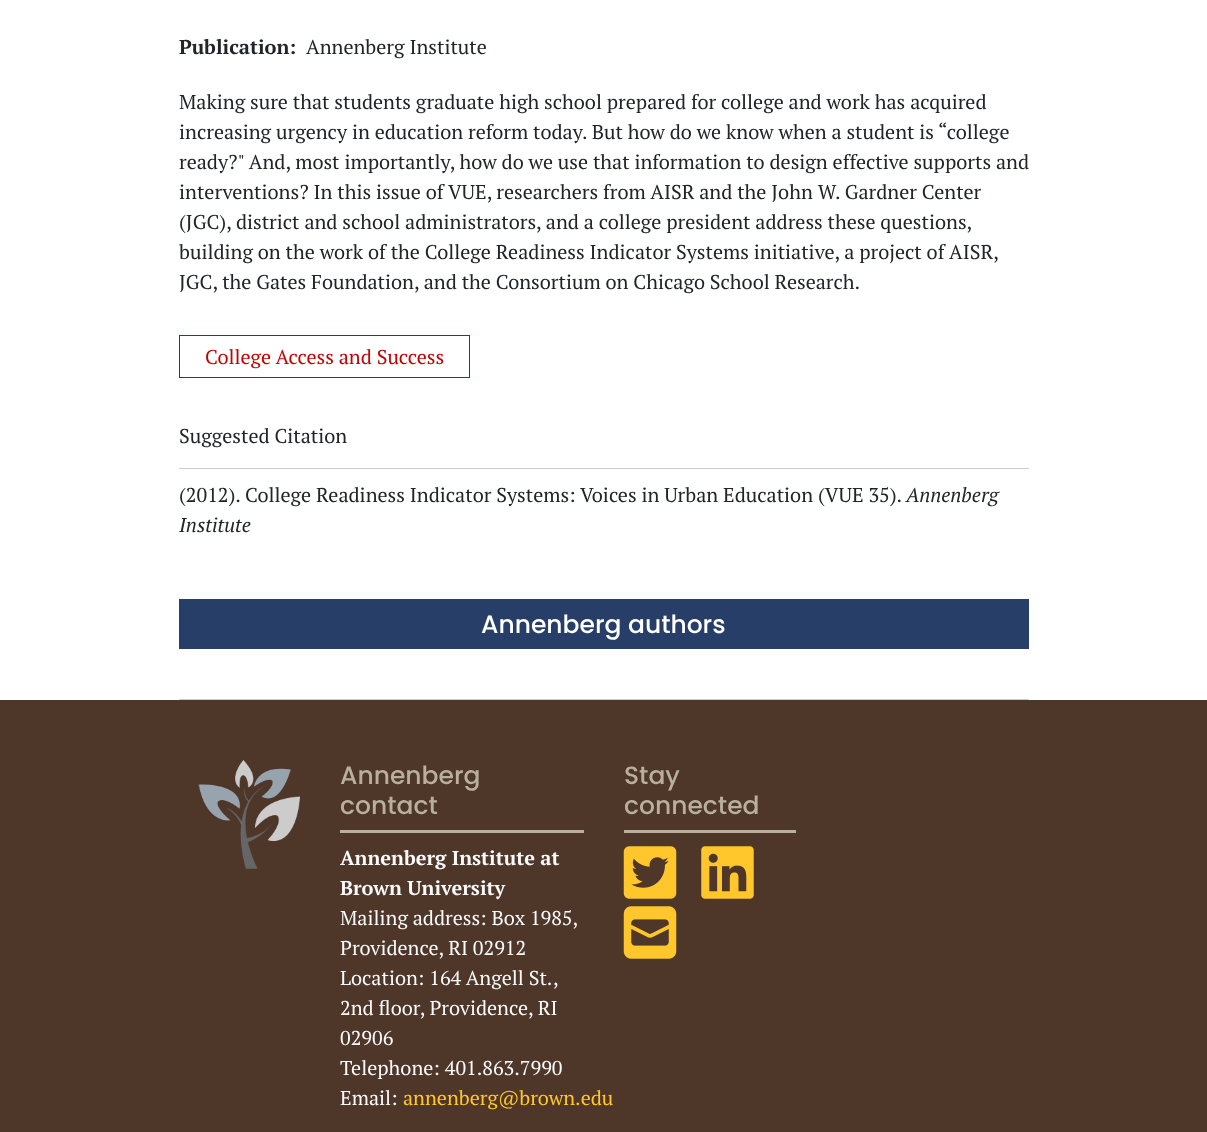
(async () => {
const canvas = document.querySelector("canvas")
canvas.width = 1207
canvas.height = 1132
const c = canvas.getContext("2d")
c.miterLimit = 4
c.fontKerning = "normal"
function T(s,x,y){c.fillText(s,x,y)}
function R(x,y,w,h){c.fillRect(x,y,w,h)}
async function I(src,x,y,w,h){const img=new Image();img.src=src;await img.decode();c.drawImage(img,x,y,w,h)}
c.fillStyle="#fff"
R(0,0,1207,1132)
c.font="bold 20px PT Serif"
c.fillStyle="#212529"
T("Publication:",179,54)
c.font="20px PT Serif"
T("Annenberg Institute",306,54)
T("Making sure that students graduate high school prepared for college and work has acquired",179,109)
T("increasing urgency in education reform today. But how do we know when a student is “college",179,139)
T("ready?\" And, most importantly, how do we use that information to design effective supports and",179,169)
T("interventions? In this issue of VUE, researchers from AISR and the John W. Gardner Center",179,199)
T("(JGC), district and school administrators, and a college president address these questions,",179,229)
T("building on the work of the College Readiness Indicator Systems initiative, a project of AISR,",179,259)
T("JGC, the Gates Foundation, and the Consortium on Chicago School Research.",179,289)
c.strokeStyle="#c00404"
c.strokeRect(179.5,335.5,290,42)
c.fillStyle="#c00404"
T("College Access and Success",205,364)
c.fillStyle="#ccc"
R(179,468,850,1)
c.fillStyle="#212529"
T("Suggested Citation",179,443)
T("(2012). College Readiness Indicator Systems: Voices in Urban Education (VUE 35).",179,502)
c.font="italic 20px PT Serif"
T("Annenberg",906,502)
T("Institute",179,532)
c.fillStyle="#273f68"
R(179,599,850,50)
c.font="500 25px Poppins"
c.fillStyle="#fff"
T("Annenberg authors",481,633)
c.fillStyle="#ccc"
R(179,699,850,1)
c.fillStyle="#4e3629"
R(0,700,1207,432)
await I("1.png",198,760,102,109)
c.fillStyle="#b7b09c"
R(340,830,244,3)
T("Annenberg",340,784)
T("contact",340,814)
c.font="bold 20px PT Serif"
c.fillStyle="#f8f9fa"
T("Annenberg Institute at",340,865)
T("Brown University",340,895)
c.font="20px PT Serif"
T("Mailing address: Box 1985,",340,925)
T("Providence, RI 02912",340,955)
T("Location: 164 Angell St.,",340,985)
T("2nd floor, Providence, RI",340,1015)
T("02906",340,1045)
T("Telephone: 401.863.7990",340,1075)
T("Email:",340,1105)
c.fillStyle="#ffc72c"
T("annenberg@brown.edu",403,1105)
c.fillStyle="#b7b09c"
R(624,830,172,3)
c.font="500 25px Poppins"
T("Stay",624,784)
T("connected",624,814)
await I("2.png",623,846,54,53)
await I("3.png",701,846,53,53)
await I("4.png",623,906,54,53)
})()
